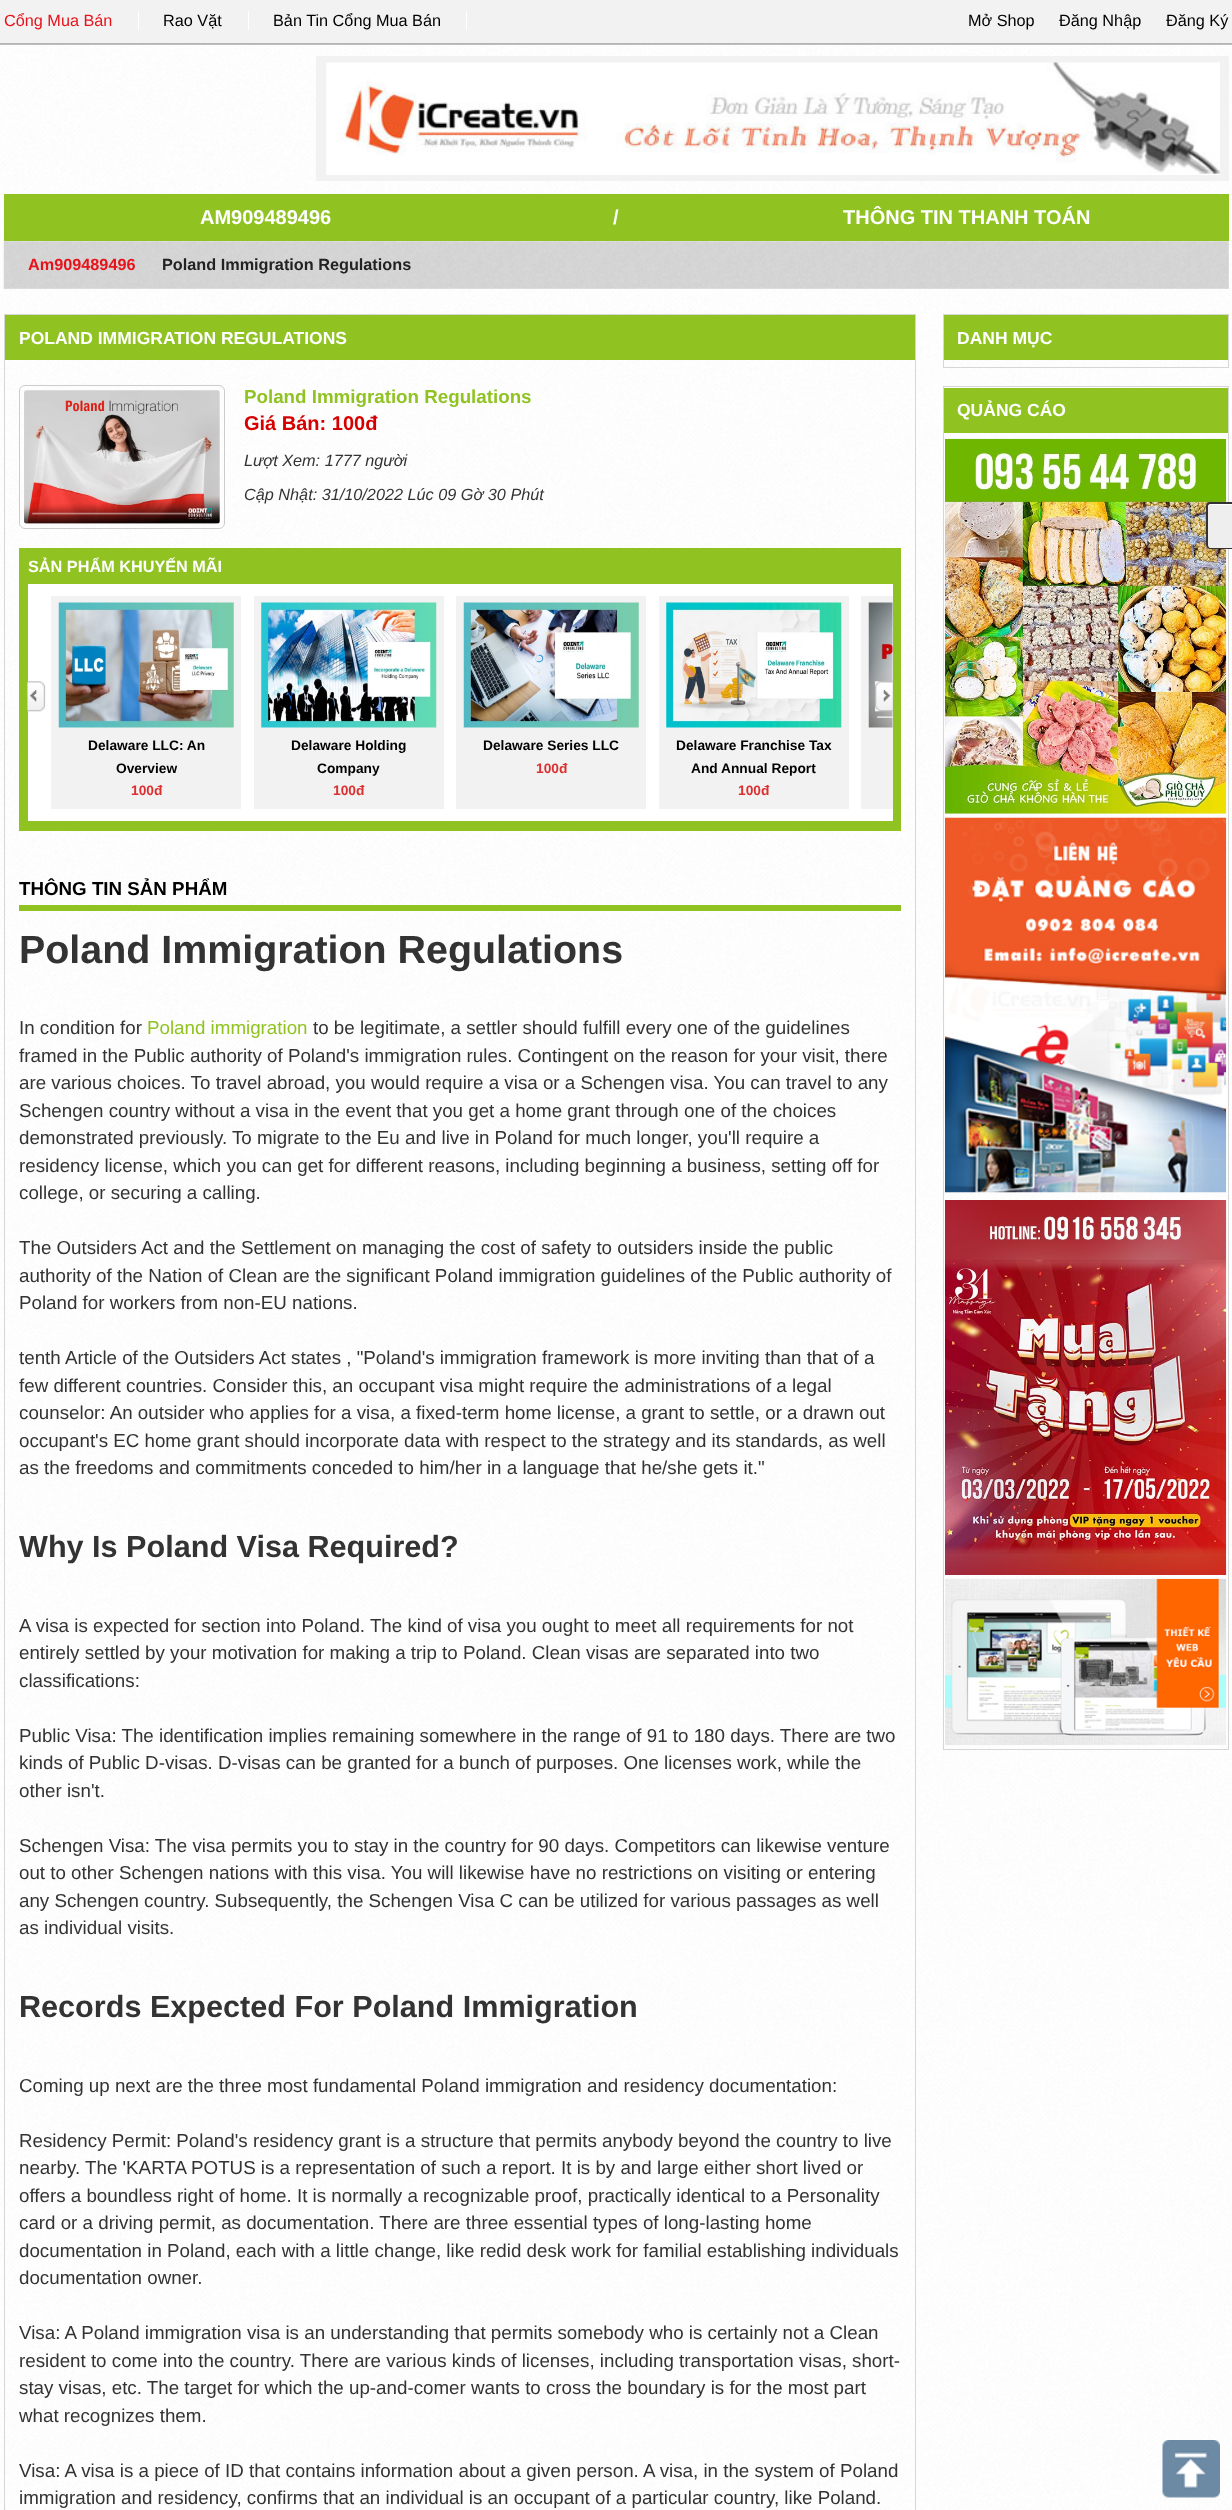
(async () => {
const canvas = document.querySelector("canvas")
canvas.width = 1232
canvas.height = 2510
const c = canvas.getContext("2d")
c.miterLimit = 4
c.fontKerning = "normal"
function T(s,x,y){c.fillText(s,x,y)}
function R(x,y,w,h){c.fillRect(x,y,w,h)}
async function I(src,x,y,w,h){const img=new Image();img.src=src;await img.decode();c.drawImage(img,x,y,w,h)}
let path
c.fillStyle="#fff"
R(0,0,1232,2510)
await I("1.png",0,44,1232,2466)
c.fillStyle="#00000040"
c.filter="blur(0.5px)"
c.beginPath()
c.rect(0,1,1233,44)
c.fill()
c.filter="none"
c.fillStyle="#f2f2f2"
R(0,0,1232,43)
c.fillStyle="#b5b5b5"
R(0,43,1232,1)
c.font="16.25px Liberation Sans"
c.fillStyle="#e7131a"
T("Cổng Mua Bán",4,26)
c.fillStyle="#fff"
R(138,11,1,19)
c.fillStyle="#000"
T("Rao Vặt",163,26)
c.fillStyle="#fff"
R(248,11,1,19)
c.fillStyle="#000"
T("Bản Tin Cổng Mua Bán",273,26)
c.fillStyle="#fff"
R(466,11,1,19)
c.fillStyle="#000"
T("Mở Shop",968,26)
T("Đăng Nhập",1059,26)
T("Đăng Ký",1166,26)
c.fillStyle="#f2f2f2"
R(316,56,913,125)
await I("2.png",326,62,894,113)
c.fillStyle="#90c322"
R(4,194,1225,47)
c.font="bold 20px Liberation Sans"
c.fillStyle="#fff"
T("AM909489496",200,224)
T("/",613,224)
T("THÔNG TIN THANH TOÁN",843,224)
c.fillStyle="#f2f2f2"
R(4,241,1225,48)
await I("3.png",3,241,1226,48)
c.font="bold 16.25px Liberation Sans"
c.fillStyle="#e7131a"
T("Am909489496",28,270)
c.fillStyle="#222"
T("Poland Immigration Regulations",162,270)
c.strokeStyle="#d6d6d6"
c.strokeRect(4.5,314.5,911,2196)
c.fillStyle="#90c322"
R(5,315,910,45)
c.font="bold 17.5px Liberation Sans"
c.fillStyle="#fff"
T("POLAND IMMIGRATION REGULATIONS",19,344)
c.beginPath()
c.roundRect(19.5,385.5,205,143,5.5)
c.strokeStyle="#ccc"
c.stroke()
await I("4.png",24,390,196,134)
c.font="bold 18.75px Liberation Sans"
c.fillStyle="#90c322"
T("Poland Immigration Regulations",244,403)
c.font="bold 20px Liberation Sans"
c.fillStyle="#d70000"
T("Giá Bán: 100đ",244,430)
c.font="italic 16.25px Liberation Sans"
c.fillStyle="#333"
T("Lượt Xem: 1777 người",244,466)
T("Cập Nhật: 31/10/2022 Lúc 09 Gờ 30 Phút",244,500)
c.fillStyle="#90c322"
R(19,548,882,283)
c.font="bold 16.25px Liberation Sans"
c.fillStyle="#fff"
T("SẢN PHẨM KHUYẾN MÃI",28,572)
R(28,584,865,237)
await I("5.png",27,681,19,31)
c.fillStyle="#f2f2f2"
R(861,596,32,213)
await I("11.png",868,602,25,126)
await I("6.png",874,681,19,31)
R(51,596,190,213)
await I("7.png",58,602,176,126)
c.font="bold 13.75px Liberation Sans"
c.fillStyle="#000"
T("Delaware LLC: An",88,750)
T("Overview",116,773)
c.fillStyle="#dc3030"
T("100đ",131,795)
c.fillStyle="#f2f2f2"
R(254,596,190,213)
await I("8.png",261,602,176,126)
c.fillStyle="#000"
T("Delaware Holding",291,750)
T("Company",317,773)
c.fillStyle="#dc3030"
T("100đ",333,795)
c.fillStyle="#f2f2f2"
R(456,596,190,213)
await I("9.png",463,602,176,126)
c.fillStyle="#000"
T("Delaware Series LLC",483,750)
c.fillStyle="#dc3030"
T("100đ",536,773)
c.fillStyle="#f2f2f2"
R(659,596,190,213)
await I("10.png",666,602,176,126)
c.fillStyle="#000"
T("Delaware Franchise Tax",676,750)
T("And Annual Report",691,773)
c.fillStyle="#dc3030"
T("100đ",738,795)
c.fillStyle="#90c322"
R(19,905,882,6)
c.font="bold 18.75px Liberation Sans"
c.fillStyle="#000"
T("THÔNG TIN SẢN PHẨM",19,895)
c.font="bold 39.4px Liberation Sans"
c.fillStyle="#333"
T("Poland Immigration Regulations",19,963)
c.font="18.75px Liberation Sans"
T("In condition for",19,1034)
c.fillStyle="#90c322"
T("Poland immigration",147,1034)
c.fillStyle="#333"
T("to be legitimate, a settler should fulfill every one of the guidelines",313,1034)
T("framed in the Public authority of Poland's immigration rules. Contingent on the reason for your visit, there",19,1062)
T("are various choices. To travel abroad, you would require a visa or a Schengen visa. You can travel to any",19,1089)
T("Schengen country without a visa in the event that you get a home grant through one of the choices",19,1117)
T("demonstrated previously. To migrate to the Eu and live in Poland for much longer, you'll require a",19,1144)
T("residency license, which you can get for different reasons, including beginning a business, setting off for",19,1172)
T("college, or securing a calling.",19,1199)
T("The Outsiders Act and the Settlement on managing the cost of safety to outsiders inside the public",19,1254)
T("authority of the Nation of Clean are the significant Poland immigration guidelines of the Public authority of",19,1282)
T("Poland for workers from non-EU nations.",19,1309)
T("tenth Article of the Outsiders Act states , \"Poland's immigration framework is more inviting than that of a",19,1364)
T("few different countries. Consider this, an occupant visa might require the administrations of a legal",19,1392)
T("counselor: An outsider who applies for a visa, a fixed-term home license, a grant to settle, or a drawn out",19,1419)
T("occupant's EC home grant should incorporate data with respect to the strategy and its standards, as well",19,1447)
T("as the freedoms and commitments conceded to him/her in a language that he/she gets it.\"",19,1474)
c.font="bold 30.6px Liberation Sans"
T("Why Is Poland Visa Required?",19,1557)
c.font="18.75px Liberation Sans"
T("A visa is expected for section into Poland. The kind of visa you ought to meet all requirements for not",19,1632)
T("entirely settled by your motivation for making a trip to Poland. Clean visas are separated into two",19,1659)
T("classifications:",19,1687)
T("Public Visa: The identification implies remaining somewhere in the range of 91 to 180 days. There are two",19,1742)
T("kinds of Public D-visas. D-visas can be granted for a bunch of purposes. One licenses work, while the",19,1769)
T("other isn't.",19,1797)
T("Schengen Visa: The visa permits you to stay in the country for 90 days. Competitors can likewise venture",19,1852)
T("out to other Schengen nations with this visa. You will likewise have no restrictions on visiting or entering",19,1879)
T("any Schengen country. Subsequently, the Schengen Visa C can be utilized for various passages as well",19,1907)
T("as individual visits.",19,1934)
c.font="bold 30.6px Liberation Sans"
T("Records Expected For Poland Immigration",19,2017)
c.font="18.75px Liberation Sans"
T("Coming up next are the three most fundamental Poland immigration and residency documentation:",19,2092)
T("Residency Permit: Poland's residency grant is a structure that permits anybody beyond the country to live",19,2147)
T("nearby. The 'KARTA POTUS is a representation of such a report. It is by and large either short lived or",19,2174)
T("offers a boundless right of home. It is normally a recognizable proof, practically identical to a Personality",19,2202)
T("card or a driving permit, as documentation. There are three essential types of long-lasting home",19,2229)
T("documentation in Poland, each with a little change, like redid desk work for familial establishing individuals",19,2257)
T("documentation owner.",19,2284)
T("Visa: A Poland immigration visa is an understanding that permits somebody who is certainly not a Clean",19,2339)
T("resident to come into the country. There are various kinds of licenses, including transportation visas, short-",19,2367)
T("stay visas, etc. The target for which the up-and-comer wants to cross the boundary is for the most part",19,2394)
T("what recognizes them.",19,2422)
T("Visa: A visa is a piece of ID that contains information about a given person. A visa, in the system of Poland",19,2477)
T("immigration and residency, confirms that an individual is an occupant of a particular country, like Poland.",19,2504)
c.strokeStyle="#d6d6d6"
c.strokeRect(943.5,314.5,285,53)
c.fillStyle="#90c322"
R(944,315,284,45)
c.font="bold 17.5px Liberation Sans"
c.fillStyle="#fff"
T("DANH MỤC",957,344)
c.strokeRect(943.5,386.5,285,1363)
c.fillStyle="#90c322"
R(944,388,284,45)
c.fillStyle="#fff"
T("QUẢNG CÁO",957,416)
await I("12.png",945,438,282,376)
await I("13.png",945,817,282,376)
await I("14.png",945,1200,282,375)
await I("15.png",945,1578,282,167)
c.fillStyle="#eee"
path = new Path2D("M1210 503h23v46h-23c-2 0-4-2-4-4v-38c0-2 2-4 4-4z")
c.fill(path)
c.fillStyle="#fff"
path = new Path2D("M1210 505h22v43h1v-44h-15c-5 0-10-2-10 4c0-2 1-3 2-3z")
c.fill(path)
c.fillStyle="#333"
path = new Path2D("M1210 502h22v47h-22c-2 0-4-2-4-4v-39c0-2 2-4 4-4zm0 2h22v44h-22c-1 0-2-2-2-3v-39c0-1 1-2 2-2z")
c.fill(path,"evenodd")
await I("16.png",1162,2440,58,58)
})()
